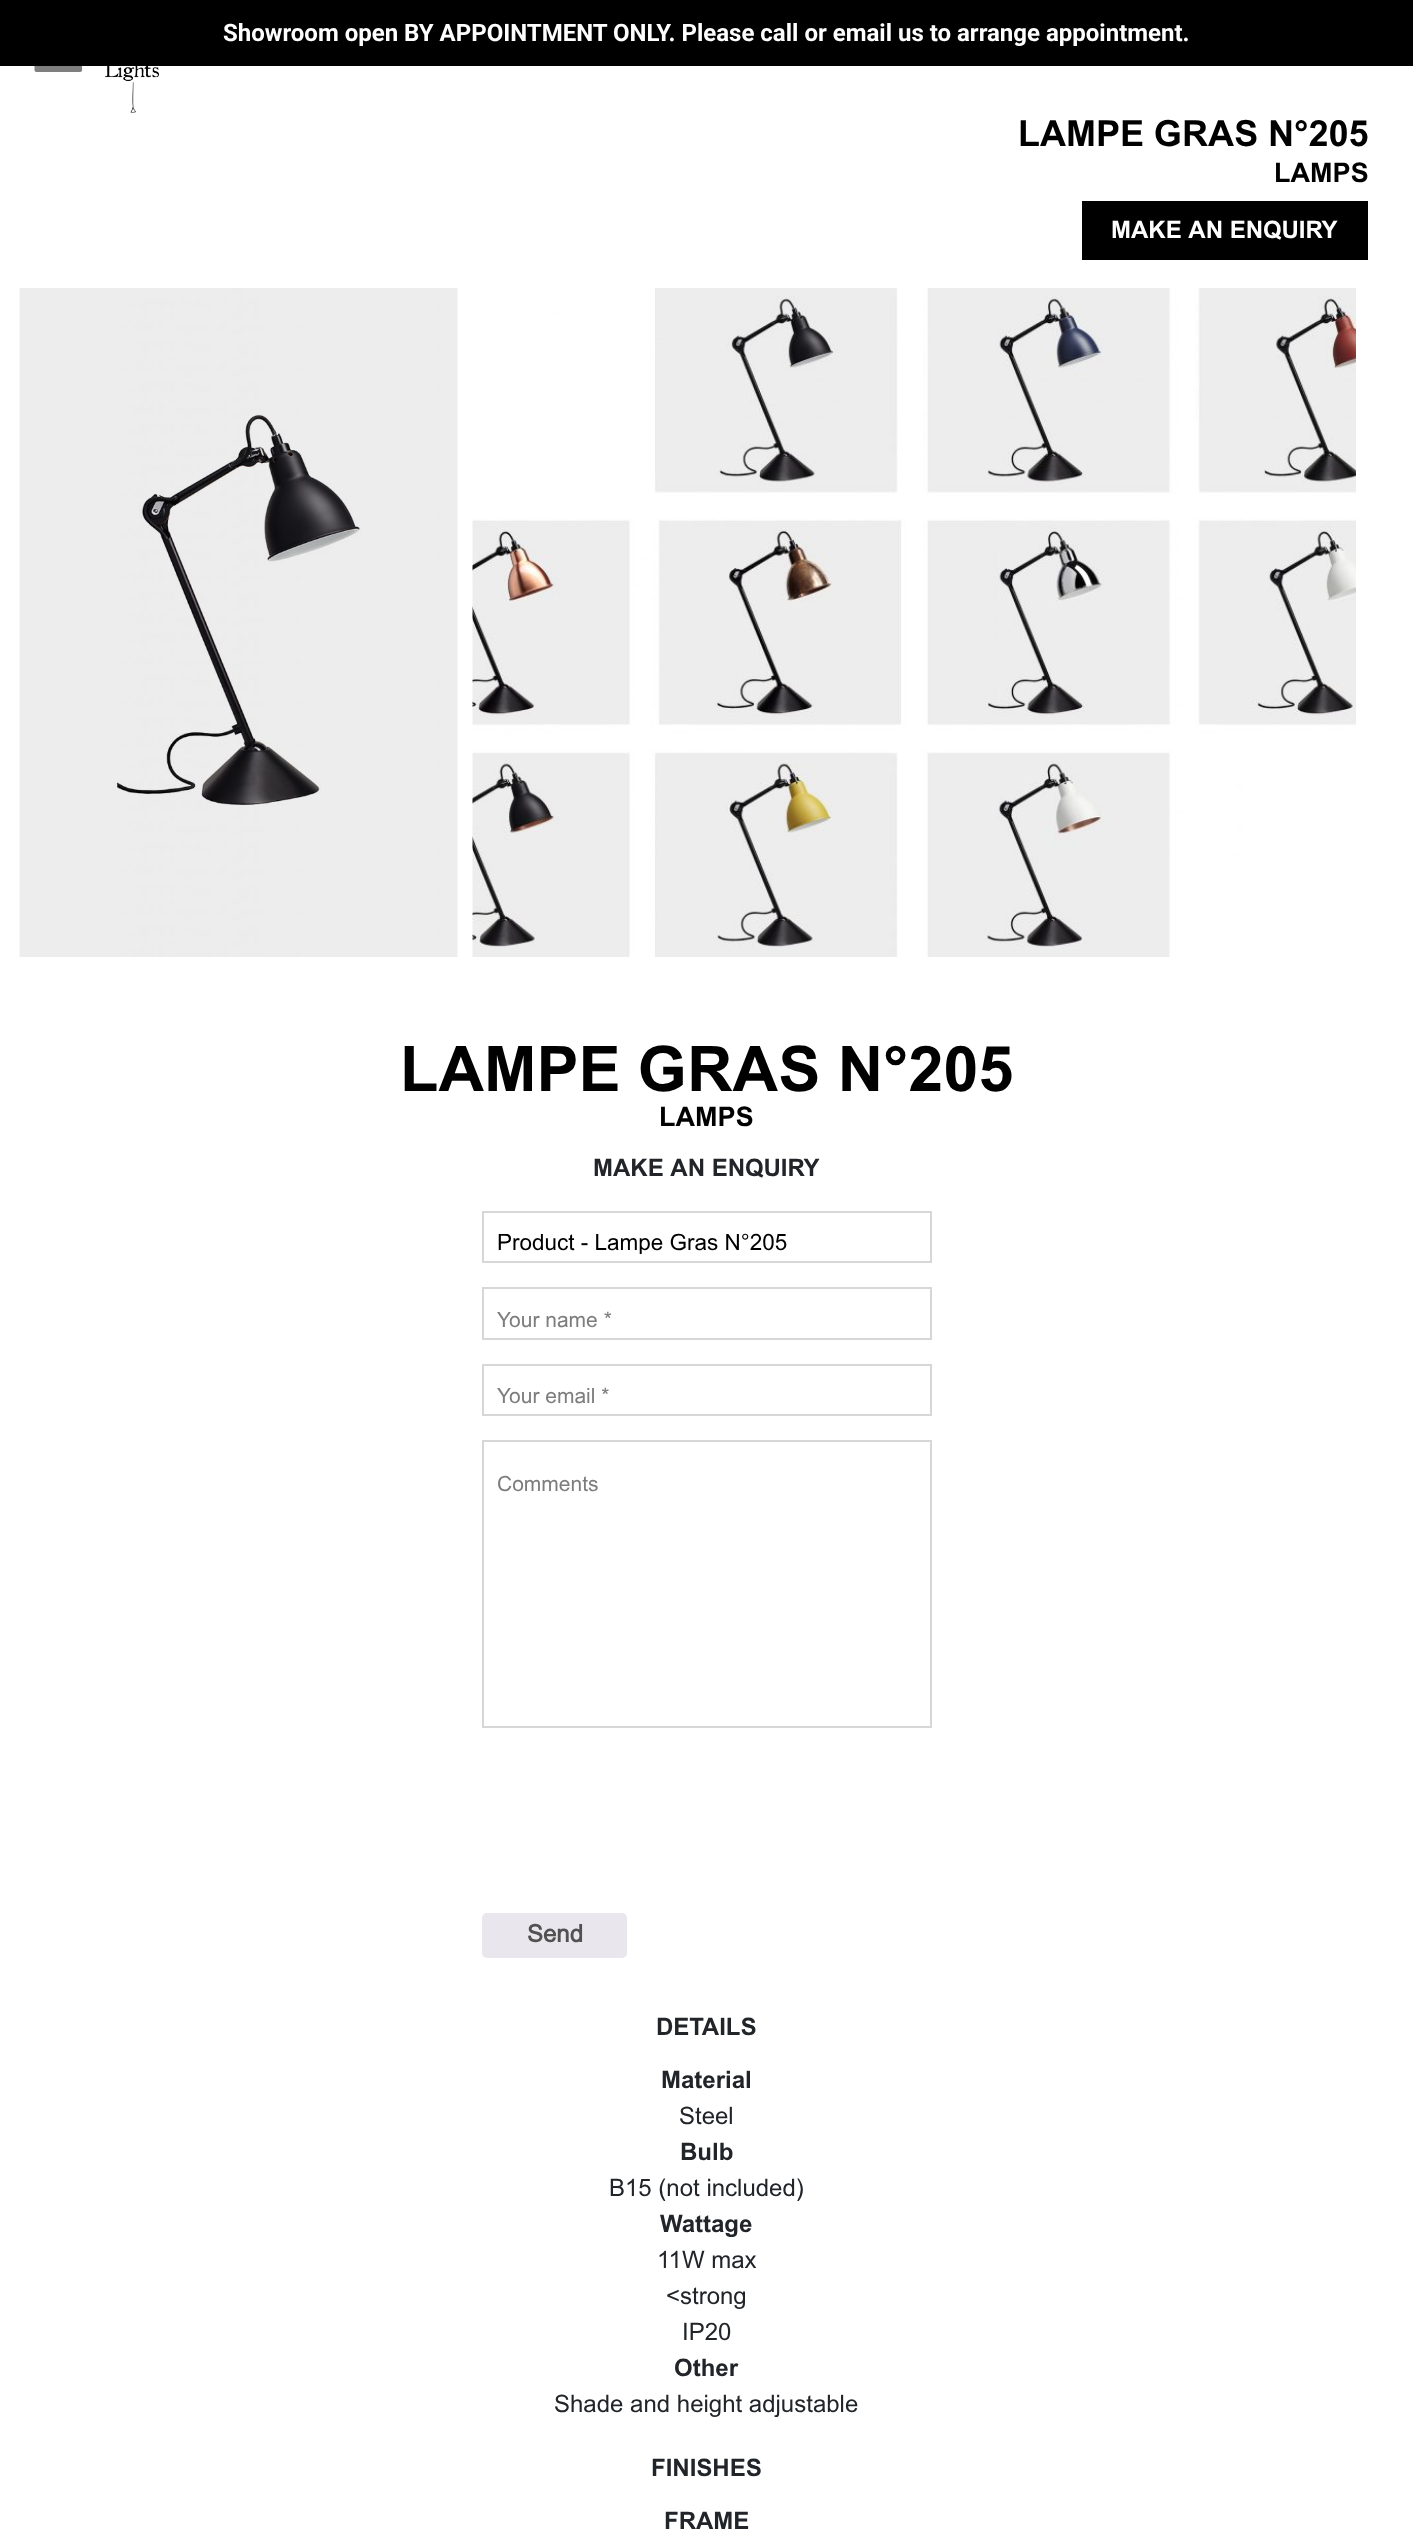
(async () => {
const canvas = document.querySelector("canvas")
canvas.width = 1413
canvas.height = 2529
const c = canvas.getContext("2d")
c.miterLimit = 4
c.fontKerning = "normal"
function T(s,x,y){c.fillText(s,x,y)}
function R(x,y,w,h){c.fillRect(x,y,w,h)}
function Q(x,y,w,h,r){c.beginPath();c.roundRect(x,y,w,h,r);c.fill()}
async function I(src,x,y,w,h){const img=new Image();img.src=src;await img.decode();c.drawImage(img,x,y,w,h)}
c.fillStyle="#fff"
R(0,0,1413,2529)
c.fillStyle="#000"
R(0,0,1413,66)
c.font="bold 24px Roboto"
c.fillStyle="#fff"
T("Showroom open BY APPOINTMENT ONLY. Please call or email us to arrange appointment.",223,41)
await I("1.png",34,66,49,6)
await I("2.png",105,66,54,47)
c.font="bold 36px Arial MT"
c.fillStyle="#000"
T("LAMPE GRAS N°205",1018,146)
c.font="bold 27px Arial MT"
T("LAMPS",1274,182)
R(1082,201,286,59)
c.font="bold 24px Arial MT"
c.fillStyle="#fff"
T("MAKE AN ENQUIRY",1111,238)
await I("3.png",19,288,439,669)
await I("4.png",472,288,884,669)
c.font="bold 63px Arial MT"
c.fillStyle="#000"
T("LAMPE GRAS N°205",400,1091)
c.font="bold 27px Arial MT"
T("LAMPS",659,1126)
c.font="bold 24px Arial MT"
c.fillStyle="#212529"
T("MAKE AN ENQUIRY",593,1176)
c.strokeStyle="#d7d7d7"
c.lineWidth=2
c.strokeRect(483,1212,448,50)
c.save()
c.beginPath()
c.rect(497,1229,420,25)
c.clip()
c.font="22.5px Arial MT"
c.fillStyle="#000"
T("Product - Lampe Gras N°205",497,1250)
c.restore()
c.strokeRect(483,1288,448,51)
c.font="21px Arial MT"
c.fillStyle="#7d7d7d"
T("Your name *",497,1327)
c.strokeRect(483,1365,448,50)
T("Your email *",497,1403)
c.strokeRect(483,1441,448,286)
T("Comments",497,1491)
c.fillStyle="#e9e6ed"
Q(482,1913,145,45,5)
c.font="bold 24px 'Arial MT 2'"
c.fillStyle="#515151"
T("Send",527,1942)
c.font="bold 24px Arial MT"
c.fillStyle="#212529"
T("DETAILS",656,2035)
T("Material",661,2088)
c.font="24px Arial MT"
T("Steel",679,2124)
c.font="bold 24px Arial MT"
T("Bulb",680,2160)
c.font="24px Arial MT"
T("B15 (not included)",609,2196)
c.font="bold 24px Arial MT"
T("Wattage",660,2232)
c.font="24px Arial MT"
T("11W max",657,2268)
T("<strong",666,2304)
T("IP20",682,2340)
c.font="bold 24px Arial MT"
T("Other",674,2376)
c.font="24px Arial MT"
T("Shade and height adjustable",554,2412)
c.font="bold 24px Arial MT"
T("FINISHES",651,2476)
T("FRAME",664,2529)
})()
